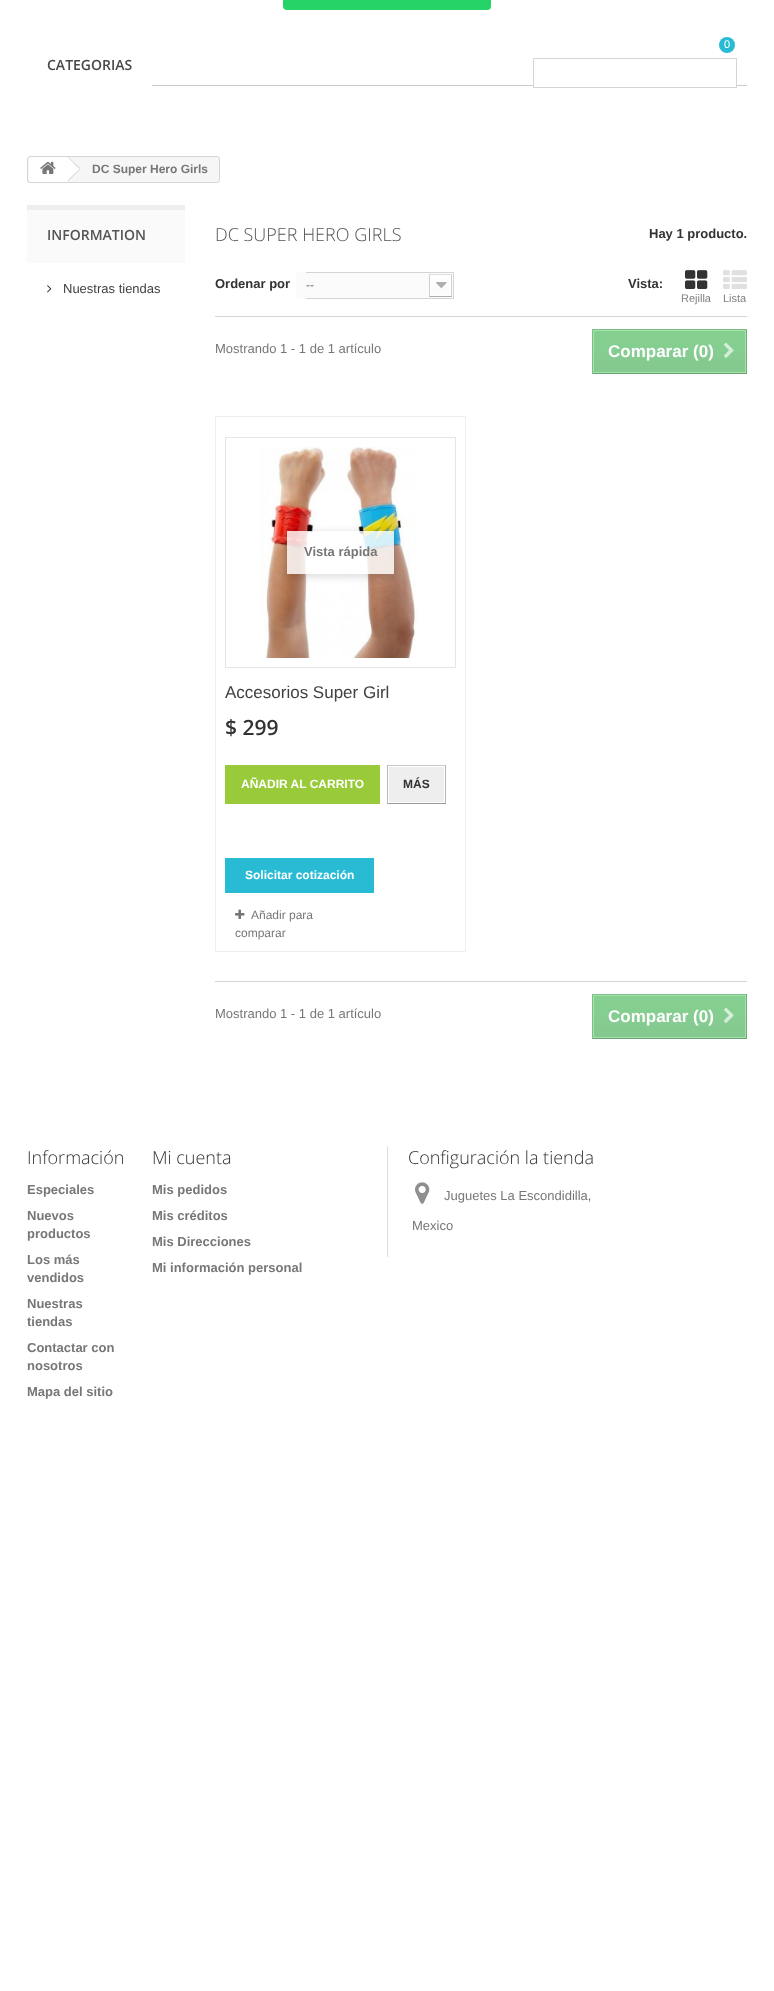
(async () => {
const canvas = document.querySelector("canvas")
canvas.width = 774
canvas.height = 1991
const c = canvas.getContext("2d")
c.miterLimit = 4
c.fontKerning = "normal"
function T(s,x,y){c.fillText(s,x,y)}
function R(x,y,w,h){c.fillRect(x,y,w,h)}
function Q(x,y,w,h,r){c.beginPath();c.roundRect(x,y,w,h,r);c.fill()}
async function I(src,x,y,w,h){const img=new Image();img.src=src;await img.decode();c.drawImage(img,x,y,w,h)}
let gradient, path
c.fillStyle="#fff"
R(0,0,774,1991)
c.fillStyle="#25d366"
Q(283,-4,208,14,4)
c.fillStyle="#29bbd4"
c.beginPath()
c.arc(727,45,8,0,7)
c.fill()
c.font="11px Liberation Sans"
c.fillStyle="#fff"
T("0",724,48)
c.fillStyle="#ccc"
R(152,85,595,1)
c.font="600 14px Open Sans"
c.fillStyle="#484848"
T("CATEGORIAS",47,70)
c.fillStyle="#fff"
R(534,85,202,1)
c.strokeStyle="#d6d4d4"
c.strokeRect(533.5,58.5,203,29)
c.fillStyle="#f6f6f6"
c.beginPath()
c.roundRect(27.5,156.5,192,26,2.5)
c.fill()
c.stroke()
c.fillStyle="#fff"
c.beginPath()
c.roundRect(29,157,38,25,[3,0,0,3])
c.fill()
await I("1.png",40,161,16,13)
path = new Path2D("M69.5 157.5l10 10c.5 .5 .5 2 0 2.5l-10 10c-1 1-2 1-3 0l-10-10c-.5-.5-.5-2 0-2.5l10-10c1-1 2-1 3 0z")
c.fill(path)
c.fillStyle="#d6d4d4"
path = new Path2D("M68.5 157l11.5 11l-.5 1l-11.5-11.5zm11 12l.5 .5l-11.5 11.5l-.5-1z")
c.fill(path)
c.font="bold 12px Liberation Sans"
c.fillStyle="#777"
T("DC Super Hero Girls",92,173)
c.fillStyle="#fafafa"
R(27,210,158,53)
c.fillStyle="#eee"
R(27,205,158,5)
c.font="600 14px Open Sans"
c.fillStyle="#555454"
T("INFORMATION",47,240)
await I("2.png",47,285,5,8)
c.font="13px Liberation Sans"
c.fillStyle="#414141"
T("Nuestras tiendas",63,293)
c.font="300 18px Open Sans"
c.fillStyle="#555454"
T("DC SUPER HERO GIRLS",215,241)
c.font="bold 13px Liberation Sans"
c.fillStyle="#333"
T("Hay 1 producto.",649,238)
c.fillStyle="#d6d4d4"
R(215,316,532,1)
c.fillStyle="#333"
T("Ordenar por",215,288)
c.fillStyle="#fbfbfb"
R(296,272,10,27)
await I("3.png",306,272,148,27)
c.font="12px Liberation Sans"
c.fillStyle="#666"
T("--",306,289)
c.font="bold 13px Liberation Sans"
c.fillStyle="#333"
T("Vista:",628,288)
await I("4.png",685,270,23,19)
c.font="11px Liberation Sans"
c.fillStyle="#808080"
T("Rejilla",681,302)
await I("5.png",723,270,24,19)
T("Lista",723,302)
c.font="13px Liberation Sans"
c.fillStyle="#777"
T("Mostrando 1 - 1 de 1 artículo",215,353)
gradient = c.createLinearGradient(670,330,670,373)
gradient.addColorStop(0,"#85d090")
gradient.addColorStop(.02,"#84d092")
gradient.addColorStop(.04,"#84d190")
gradient.addColorStop(.06,"#85d091")
gradient.addColorStop(.38,"#84ce90")
gradient.addColorStop(.4,"#85ce91")
gradient.addColorStop(.66,"#86cb91")
gradient.addColorStop(.74,"#84ca8f")
gradient.addColorStop(.91,"#84c98f")
gradient.addColorStop(.94,"#84ca91")
gradient.addColorStop(.96,"#85c890")
gradient.addColorStop(1,"#84c98f")
c.fillStyle = gradient
R(594,331,151,41)
c.fillStyle="#7ebd89"
R(592,329,155,1)
c.fillStyle="#71ac7a"
R(746,329,1,45)
c.fillStyle="#6aa073"
R(592,373,155,1)
c.fillStyle="#7ebd89"
R(592,329,1,45)
c.strokeStyle="#a5e4a7"
c.strokeRect(593.5,330.5,152,42)
c.font="bold 17px Liberation Sans"
c.fillStyle="#fff"
T("Comparar (0)",608,357)
await I("6.png",724,342,10,16)
c.strokeStyle="#eee"
c.strokeRect(215.5,416.5,250,535)
c.strokeStyle="#e3e7e8"
c.strokeRect(225.5,437.5,230,230)
await I("7.png",260,447,158,211)
c.save()
path = new Path2D("M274 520h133v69h-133zm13 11h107v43h-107z")
c.clip(path,"evenodd")
c.fillStyle="#00000029"
c.filter="blur(4px)"
c.beginPath()
c.rect(287,533,107,43)
c.fill()
c.filter="none"
c.restore()
c.fillStyle="#ffffffd1"
R(287,531,107,43)
c.font="bold 13px Liberation Sans"
c.fillStyle="#777"
T("Vista rápida",304,556)
c.font="17px Liberation Sans"
c.fillStyle="#414141"
T("Accesorios Super Girl",225,698)
c.font="600 21px Open Sans"
c.fillStyle="#333"
T("$ 299",225,735)
c.strokeStyle="#99ca3a"
c.strokeRect(225.5,765.5,154,38)
c.fillStyle="#99ca3a"
R(226,766,153,37)
c.font="bold 12px Liberation Sans"
c.fillStyle="#fff"
T("AÑADIR AL CARRITO",241,788)
c.fillStyle="#cacaca"
R(387,765,59,1)
c.fillStyle="#b7b7b7"
R(445,765,1,39)
c.fillStyle="#9a9a9a"
R(387,803,59,1)
c.fillStyle="#b7b7b7"
R(387,765,1,39)
c.fillStyle="#eee"
R(389,767,55,35)
c.fillStyle="#333"
T("MÁS",403,788)
c.fillStyle="#29bbd4"
R(225,858,149,35)
c.fillStyle="#fff"
T("Solicitar cotización",245,879)
await I("8.png",235,909,10,10)
c.font="12px Liberation Sans"
c.fillStyle="#777"
T("Añadir para",251,919)
T("comparar",235,937)
c.fillStyle="#d6d4d4"
R(215,981,532,1)
c.font="13px Liberation Sans"
c.fillStyle="#777"
T("Mostrando 1 - 1 de 1 artículo",215,1018)
gradient = c.createLinearGradient(670,995,670,1038)
gradient.addColorStop(0,"#85d090")
gradient.addColorStop(.02,"#84d092")
gradient.addColorStop(.04,"#84d190")
gradient.addColorStop(.06,"#85d091")
gradient.addColorStop(.38,"#84ce90")
gradient.addColorStop(.4,"#85ce91")
gradient.addColorStop(.66,"#86cb91")
gradient.addColorStop(.74,"#84ca8f")
gradient.addColorStop(.91,"#84c98f")
gradient.addColorStop(.94,"#84ca91")
gradient.addColorStop(.96,"#85c890")
gradient.addColorStop(1,"#84c98f")
c.fillStyle = gradient
R(594,996,151,41)
c.fillStyle="#7ebd89"
R(592,994,155,1)
c.fillStyle="#71ac7a"
R(746,994,1,45)
c.fillStyle="#6aa073"
R(592,1038,155,1)
c.fillStyle="#7ebd89"
R(592,994,1,45)
c.strokeStyle="#a5e4a7"
c.strokeRect(593.5,995.5,152,42)
c.font="bold 17px Liberation Sans"
c.fillStyle="#fff"
T("Comparar (0)",608,1022)
await I("6.png",724,1007,10,16)
c.font="300 18px Open Sans"
c.fillStyle="#333"
T("Información",27,1164)
c.font="bold 13px Liberation Sans"
c.fillStyle="#777"
T("Especiales",27,1194)
T("Nuevos",27,1220)
T("productos",27,1238)
T("Los más",27,1264)
T("vendidos",27,1282)
T("Nuestras",27,1308)
T("tiendas",27,1326)
T("Contactar con",27,1352)
T("nosotros",27,1370)
T("Mapa del sitio",27,1396)
c.font="300 18px Open Sans"
c.fillStyle="#333"
T("Mi cuenta",152,1164)
c.font="bold 13px Liberation Sans"
c.fillStyle="#777"
T("Mis pedidos",152,1194)
T("Mis créditos",152,1220)
T("Mis Direcciones",152,1246)
T("Mi información personal",152,1272)
c.fillStyle="#ddd"
R(387,1146,1,111)
c.font="300 18px Open Sans"
c.fillStyle="#333"
T("Configuración la tienda",408,1164)
await I("9.png",415,1182,15,22)
c.font="13px Liberation Sans"
c.fillStyle="#777"
T("Juguetes La Escondidilla,",444,1200)
T("Mexico",412,1230)
})()
